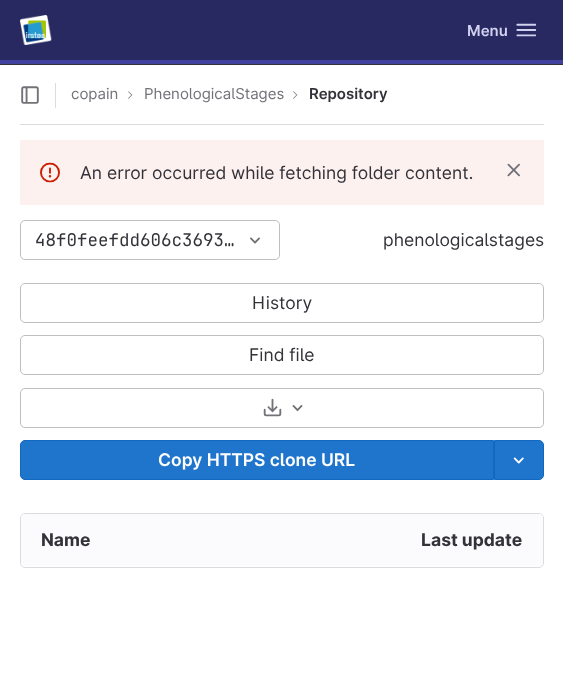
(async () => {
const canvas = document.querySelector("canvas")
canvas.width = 563
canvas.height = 692
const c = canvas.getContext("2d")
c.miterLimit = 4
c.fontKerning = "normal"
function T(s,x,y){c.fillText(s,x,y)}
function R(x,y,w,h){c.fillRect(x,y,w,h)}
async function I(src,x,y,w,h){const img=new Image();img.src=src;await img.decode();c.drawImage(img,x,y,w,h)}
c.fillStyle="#fff"
R(0,0,563,692)
c.fillStyle="#292961"
R(0,0,563,60)
await I("1.png",20,15,32,30)
c.font="600 15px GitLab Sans"
c.fillStyle="#d1d1f0"
T("Menu",467,36)
await I("2.png",516,23,21,14)
c.fillStyle="#41419f"
R(0,60,563,4)
c.fillStyle="#333238"
R(0,64,563,1)
c.fillStyle="#dcdcde"
R(20,124,524,1)
await I("3.png",21,86,18,18)
R(55,83,1,25)
c.font="15px GitLab Sans"
c.fillStyle="#737278"
T("copain",71,99)
await I("4.png",128,91,5,8)
T("PhenologicalStages",144,99)
await I("4.png",293,91,5,8)
c.font="600 15px GitLab Sans"
c.fillStyle="#333238"
T("Repository",309,99)
c.fillStyle="#fcf1ef"
R(20,140,524,65)
await I("5.png",40,162,20,21)
c.font="17.5px GitLab Sans"
c.fillStyle="#333238"
T("An error occurred while fetching folder content.",80,179)
await I("6.png",507,163,13,14)
c.beginPath()
c.roundRect(20.5,220.5,259,39,4.5)
c.strokeStyle="#bfbfc3"
c.stroke()
c.font="17.5px JetBrains Mono"
T("48f0feefdd606c3693…",35,246)
await I("7.png",250,237,10,7)
c.font="17.5px GitLab Sans"
T("phenologicalstages",383,246)
c.beginPath()
c.roundRect(20.5,283.5,523,39,4.5)
c.stroke()
T("History",252,309)
c.beginPath()
c.roundRect(20.5,335.5,523,39,4.5)
c.stroke()
T("Find file",249,361)
c.beginPath()
c.roundRect(20.5,388.5,523,39,4.5)
c.stroke()
await I("8.png",263,398,19,19)
await I("9.png",292,405,11,6)
c.fillStyle="#1f75cb"
c.beginPath()
c.roundRect(20.5,440.5,473,39,[4.5,0,0,4.5])
c.fill()
c.strokeStyle="#1068bf"
c.stroke()
c.font="600 17.5px GitLab Sans"
c.fillStyle="#fff"
T("Copy HTTPS clone URL",158,466)
c.fillStyle="#1f75cb"
c.beginPath()
c.roundRect(494.5,440.5,49,39,[0,4.5,4.5,0])
c.fill()
c.stroke()
await I("10.png",513,457,11,7)
c.beginPath()
c.roundRect(20.5,513.5,523,54,4.5)
c.strokeStyle="#dcdcde"
c.stroke()
c.fillStyle="#fbfafd"
c.beginPath()
c.roundRect(21,514,262,52,[4,0,0,4])
c.fill()
c.font="bold 17.5px GitLab Sans"
c.fillStyle="#333238"
T("Name",41,546)
c.fillStyle="#fbfafd"
c.beginPath()
c.roundRect(283,514,260,52,[0,4,4,0])
c.fill()
c.fillStyle="#333238"
T("Last update",421,546)
})()
